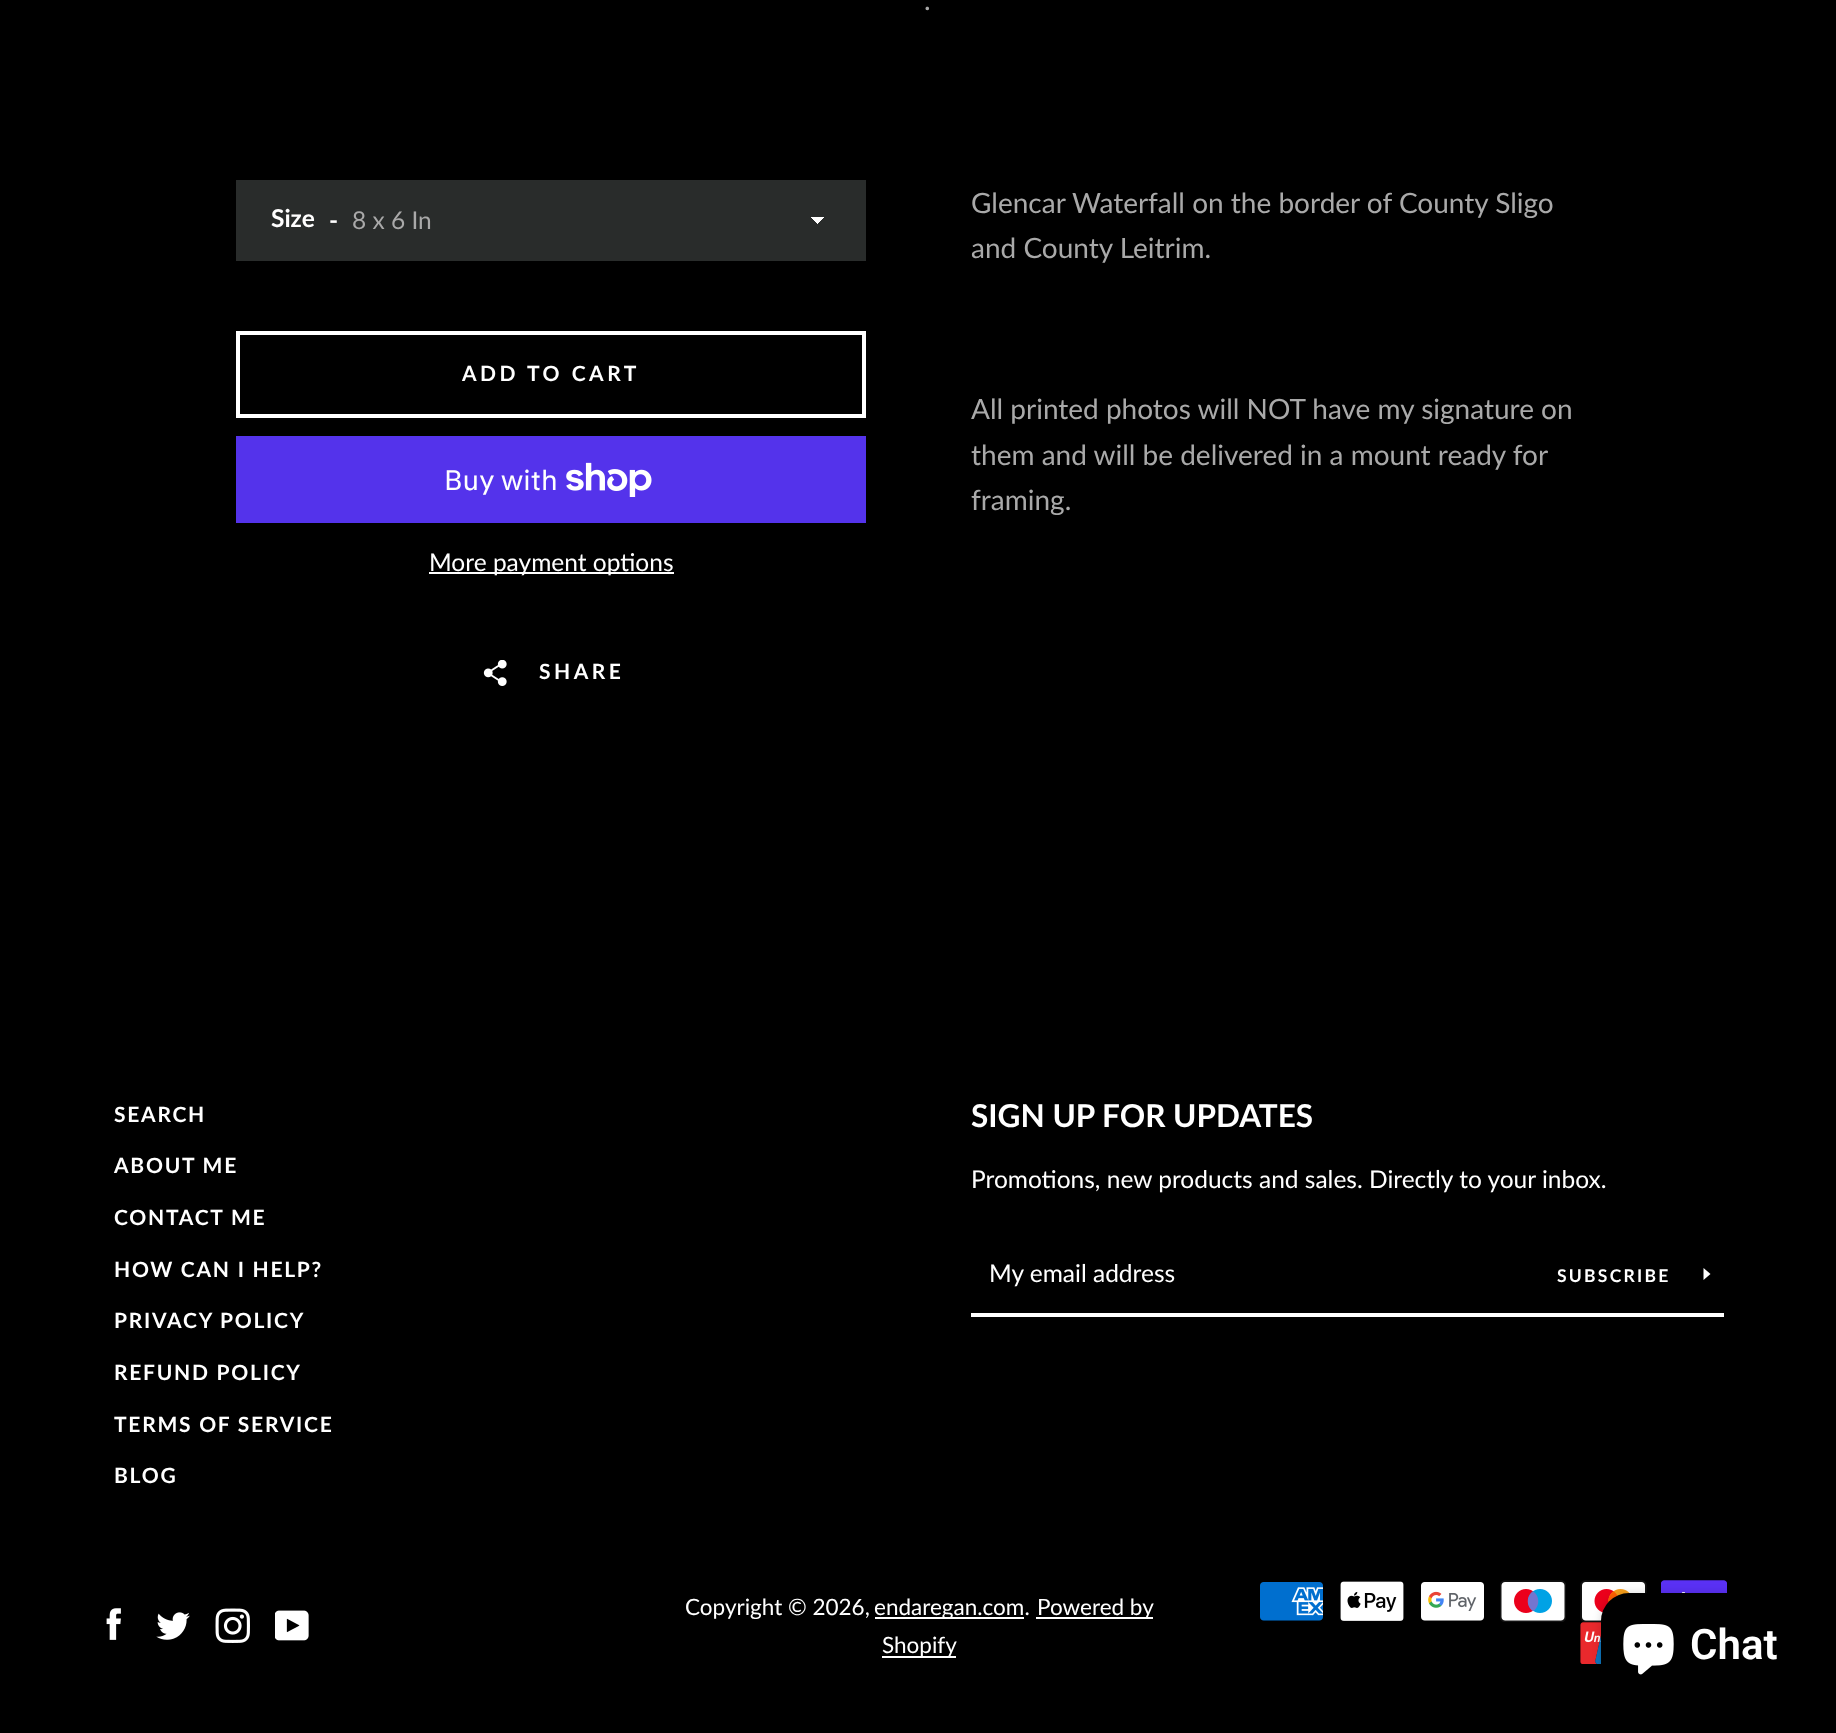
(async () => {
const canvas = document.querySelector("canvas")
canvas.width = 1836
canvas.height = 1733
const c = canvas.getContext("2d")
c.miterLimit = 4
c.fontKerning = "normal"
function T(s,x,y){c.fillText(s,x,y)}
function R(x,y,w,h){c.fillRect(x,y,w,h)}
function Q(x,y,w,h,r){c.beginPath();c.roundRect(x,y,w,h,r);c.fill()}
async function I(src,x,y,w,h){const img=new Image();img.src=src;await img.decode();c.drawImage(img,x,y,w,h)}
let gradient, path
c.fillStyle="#000"
R(0,0,1836,1733)
c.letterSpacing="3px"
c.font="28px Lato"
c.fillStyle="#a9a9a9"
T(".",924,10)
c.fillStyle="#292c2b"
R(236,180,630,81)
c.letterSpacing="0px"
c.font="bold 24.5px Lato"
c.fillStyle="#fff"
T("Size",271,227)
T("-",329,229)
gradient = c.createLinearGradient(817,217,824,224)
gradient.addColorStop(.5,"#fff")
gradient.addColorStop(.5,"#292c2b")
c.fillStyle = gradient
R(817,217,7,7)
gradient = c.createLinearGradient(810,224,817,217)
gradient.addColorStop(.5,"#292c2b")
gradient.addColorStop(.5,"#fff")
c.fillStyle = gradient
R(810,217,7,6)
c.font="24.5px Lato"
c.fillStyle="#a9a9a9"
T("8 x 6 In",352,229)
c.strokeStyle="#fff"
c.lineWidth=4
c.strokeRect(238,333,626,83)
c.letterSpacing="3.5px"
c.font="bold 21px Lato"
c.fillStyle="#fff"
T("ADD TO CART",462,381)
c.fillStyle="#5433eb"
R(236,436,630,87)
c.letterSpacing="0px"
c.font="28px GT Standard"
c.fillStyle="#fff"
T("Buy with",444,490)
await I("1.png",566,462,86,35)
R(429,572,245,2)
c.font="24.5px Lato"
T("More payment options",429,571)
await I("2.png",483,660,24,26)
c.letterSpacing="3.5px"
c.font="bold 21px Lato"
T("SHARE",539,679)
c.letterSpacing="0px"
c.font="28px Lato"
c.fillStyle="#a9a9a9"
T("Glencar Waterfall on the border of County Sligo",971,213)
T("and County Leitrim.",971,258)
T("All printed photos will NOT have my signature on",971,419)
T("them and will be delivered in a mount ready for",971,465)
T("framing.",971,510)
c.letterSpacing="1.75px"
c.font="bold 21px Lato"
c.fillStyle="#fff"
T("SEARCH",114,1122)
T("ABOUT ME",114,1173)
T("CONTACT ME",114,1225)
T("HOW CAN I HELP?",114,1277)
T("PRIVACY POLICY",114,1328)
T("REFUND POLICY",114,1380)
T("TERMS OF SERVICE",114,1432)
T("BLOG",114,1483)
c.letterSpacing="0px"
c.font="bold 31.5px Lato"
T("SIGN UP FOR UPDATES",971,1127)
c.font="24.5px Lato"
T("Promotions, new products and sales. Directly to your inbox.",971,1188)
R(971,1313,753,4)
T("My email address",989,1282)
c.letterSpacing="2.25px"
c.font="bold 17.5px Lato"
T("SUBSCRIBE",1557,1282)
path = new Path2D("M1710.5 1274l-7 6v-12z")
c.fill(path)
await I("3.png",106,1608,15,32)
await I("4.png",156,1612,34,28)
await I("5.png",215,1608,35,35)
await I("6.png",275,1610,34,31)
c.letterSpacing="0px"
c.font="22.5px Lato"
T("Copyright © 2026,",685,1615)
R(875,1617,149,2)
T("endaregan.com.",874,1615)
R(1036,1617,117,2)
T("Powered by",1037,1615)
R(882,1656,74,2)
T("Shopify",882,1653)
await I("7.png",1260,1582,63,39)
await I("8.png",1340,1581,64,40)
await I("9.png",1421,1582,63,39)
await I("10.png",1500,1580,66,42)
await I("11.png",1580,1580,67,42)
await I("12.png",1661,1580,66,13)
await I("13.png",1580,1622,21,42)
c.fillStyle="#00000026"
c.filter="blur(4.5px)"
c.beginPath()
c.roundRect(1601,1593,198,105,28)
c.fill()
c.filter="none"
c.fillStyle="#000"
Q(1601,1593,198,105,28)
await I("14.png",1623,1624,51,51)
c.font="600 42px Roboto"
c.fillStyle="#fff"
T("Chat",1690,1659)
})()
